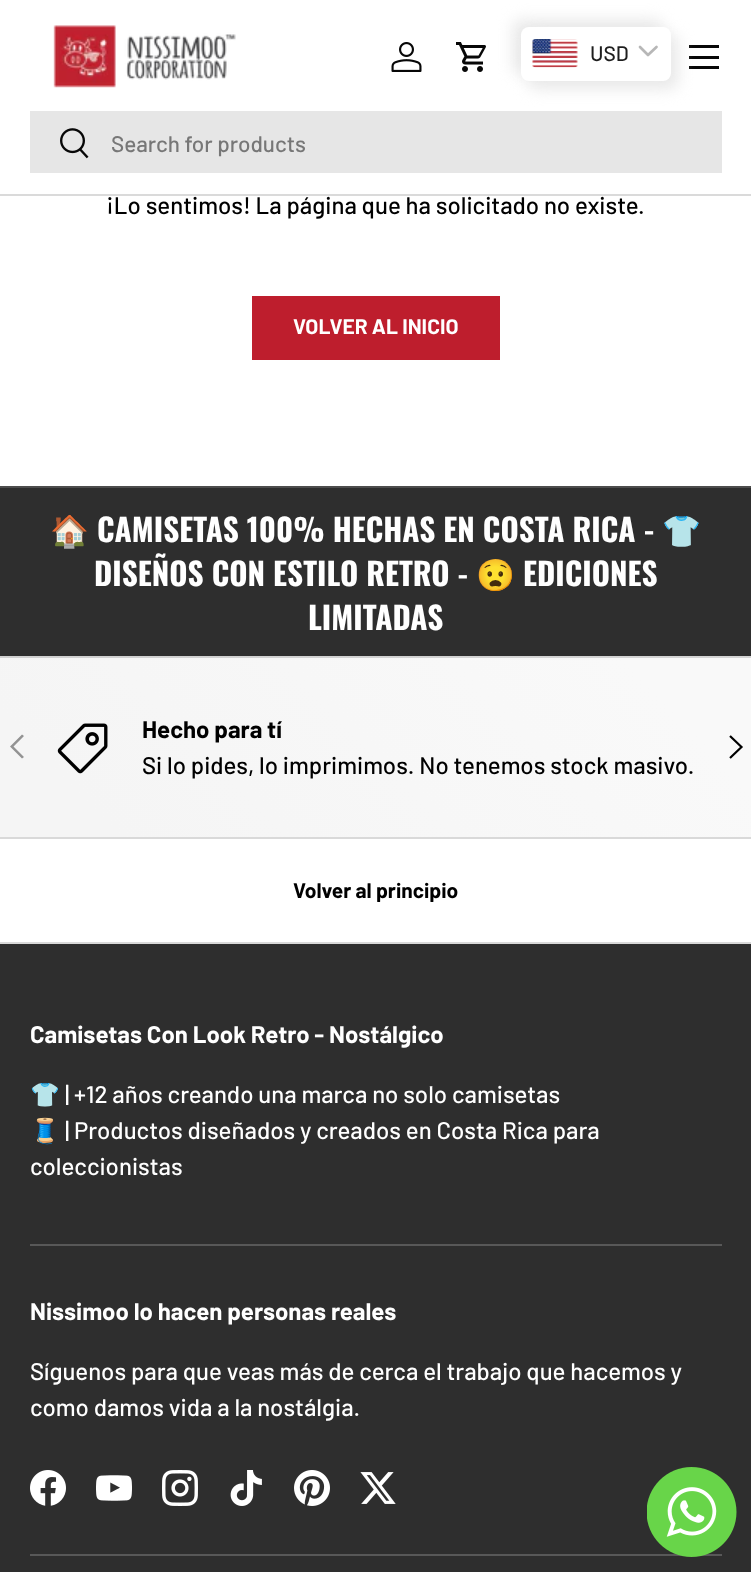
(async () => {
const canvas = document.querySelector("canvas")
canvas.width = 751
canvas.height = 1572
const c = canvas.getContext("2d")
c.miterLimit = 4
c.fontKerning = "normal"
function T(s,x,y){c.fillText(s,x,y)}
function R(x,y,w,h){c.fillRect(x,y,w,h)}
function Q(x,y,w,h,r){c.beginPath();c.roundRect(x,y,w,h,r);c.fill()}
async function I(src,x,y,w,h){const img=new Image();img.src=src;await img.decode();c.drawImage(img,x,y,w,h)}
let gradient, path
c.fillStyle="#fff"
R(0,0,751,1572)
c.fillStyle="#dadada"
R(0,194,751,2)
await I("1.png",53,25,183,63)
await I("2.png",391,42,31,30)
await I("3.png",456,42,30,30)
c.fillStyle="#e8e8e8"
c.filter="blur(7.5px)"
c.beginPath()
c.roundRect(513,20,150,54,8)
c.fill()
c.filter="none"
c.fillStyle="#070707"
R(689,45,30,3)
R(689,66,30,3)
R(689,56,30,3)
c.fillStyle="#e6e6e6"
R(30,111,692,62)
c.fillStyle="#e8e8e8"
c.filter="blur(7.5px)"
c.beginPath()
c.roundRect(528,35,150,54,8)
c.fill()
c.filter="none"
c.fillStyle="#fff"
Q(521,27,150,54,8)
await I("4.png",532,39,46,29)
c.font="500 21px Barlow"
c.fillStyle="#1e1e1e"
T("USD",590,61)
path = new Path2D("M640 47l8 8l8.5-8")
c.strokeStyle="#b7b7b7"
c.lineWidth=2.7
c.lineCap="round"
c.lineJoin="round"
c.stroke(path)
await I("5.png",60,128,29,31)
c.font="500 22.5px Barlow"
c.fillStyle="#777"
T("Search for products",111,152)
c.font="500 24px Barlow"
c.fillStyle="#000"
T("¡Lo sentimos! La página que ha solicitado no existe.",106,214)
gradient = c.createLinearGradient(-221,240,484,416)
gradient.addColorStop(.6,"#cb4c58")
gradient.addColorStop(.6,"#be1e2d")
gradient.addColorStop(1,"#be1e2d")
c.fillStyle = gradient
R(254,298,244,60)
c.strokeStyle="#be1e2d"
c.lineWidth=2
c.lineJoin="miter"
c.strokeRect(253,297,246,62)
c.font="bold 21px Barlow"
c.fillStyle="#fff"
T("VOLVER AL INICIO",293,334)
c.fillStyle="#2e2e2e"
R(0,488,751,168)
c.fillStyle="#4d4d4d"
R(0,486,751,2)
c.font="bold 31.25px Noto Color Emoji"
c.fillStyle="#fff"
T("🏠",50,542)
c.font="bold 31.25px Oswald"
T("CAMISETAS 100% HECHAS EN COSTA RICA",97,542)
T("-",644,542)
c.font="bold 31.25px Noto Color Emoji"
T("👕",662,542)
c.font="bold 31.25px Oswald"
T("DISEÑOS CON ESTILO RETRO -",94,586)
c.font="bold 31.25px Noto Color Emoji"
T("😧",476,586)
c.font="bold 31.25px Oswald"
T("EDICIONES",523,586)
T("LIMITADAS",308,630)
gradient = c.createLinearGradient(136,798,615,336)
gradient.addColorStop(.13,"#d0d0d0")
gradient.addColorStop(.86,"#d4d4d4")
c.fillStyle = gradient
R(0,656,751,1)
gradient = c.createLinearGradient(136,978,615,516)
gradient.addColorStop(.13,"#f5f5f5")
gradient.addColorStop(.86,"#f9f9f9")
c.fillStyle = gradient
R(0,658,751,179)
gradient = c.createLinearGradient(136,978,615,516)
gradient.addColorStop(.13,"#d0d0d0")
gradient.addColorStop(.86,"#d4d4d4")
c.fillStyle = gradient
R(0,657,751,1)
await I("6.png",57,723,51,51)
c.font="bold 24px Barlow"
c.fillStyle="#000"
T("Hecho para tí",142,738)
c.font="500 24px Barlow"
T("Si lo pides, lo imprimimos. No tenemos stock masivo.",142,774)
c.fillStyle="#939393"
path = new Path2D("M10 746.5l12-12l2 1.5l-10.5 10.5l10.5 10.5l-2 1.5z")
c.fill(path)
path = new Path2D("M730 736l11.5 11l-11.5 11")
c.strokeStyle="#000"
c.lineWidth=2.2
c.lineCap="butt"
c.stroke(path)
c.fillStyle="#d9d9d9"
R(0,837,751,2)
R(0,942,751,2)
c.font="bold 21px Barlow"
c.fillStyle="#000"
T("Volver al principio",293,898)
c.fillStyle="#2e2e2e"
R(0,944,751,628)
c.font="bold 24px Barlow"
c.fillStyle="#fff"
T("Camisetas Con Look Retro - Nostálgico",30,1043)
c.font="24px Noto Color Emoji"
T("👕",30,1103)
c.font="500 24px Barlow"
T("| +12 años creando una marca no solo camisetas",65,1103)
c.font="24px Noto Color Emoji"
T("🧵",30,1139)
c.font="500 24px Barlow"
T("| Productos diseñados y creados en Costa Rica para",65,1139)
T("coleccionistas",30,1175)
c.fillStyle="#585858"
R(30,1244,692,2)
c.font="bold 24px Barlow"
c.fillStyle="#fff"
T("Nissimoo lo hacen personas reales",30,1320)
c.font="500 24px Barlow"
T("Síguenos para que veas más de cerca el trabajo que hacemos y",30,1380)
T("como damos vida a la nostálgia.",30,1416)
await I("7.png",30,1470,36,36)
await I("8.png",96,1475,36,26)
await I("9.png",162,1470,36,36)
await I("10.png",230,1470,32,36)
await I("11.png",294,1470,36,36)
await I("12.png",360,1472,36,32)
c.fillStyle="#585858"
R(30,1554,692,2)
await I("13.png",647,1467,90,90)
})()
